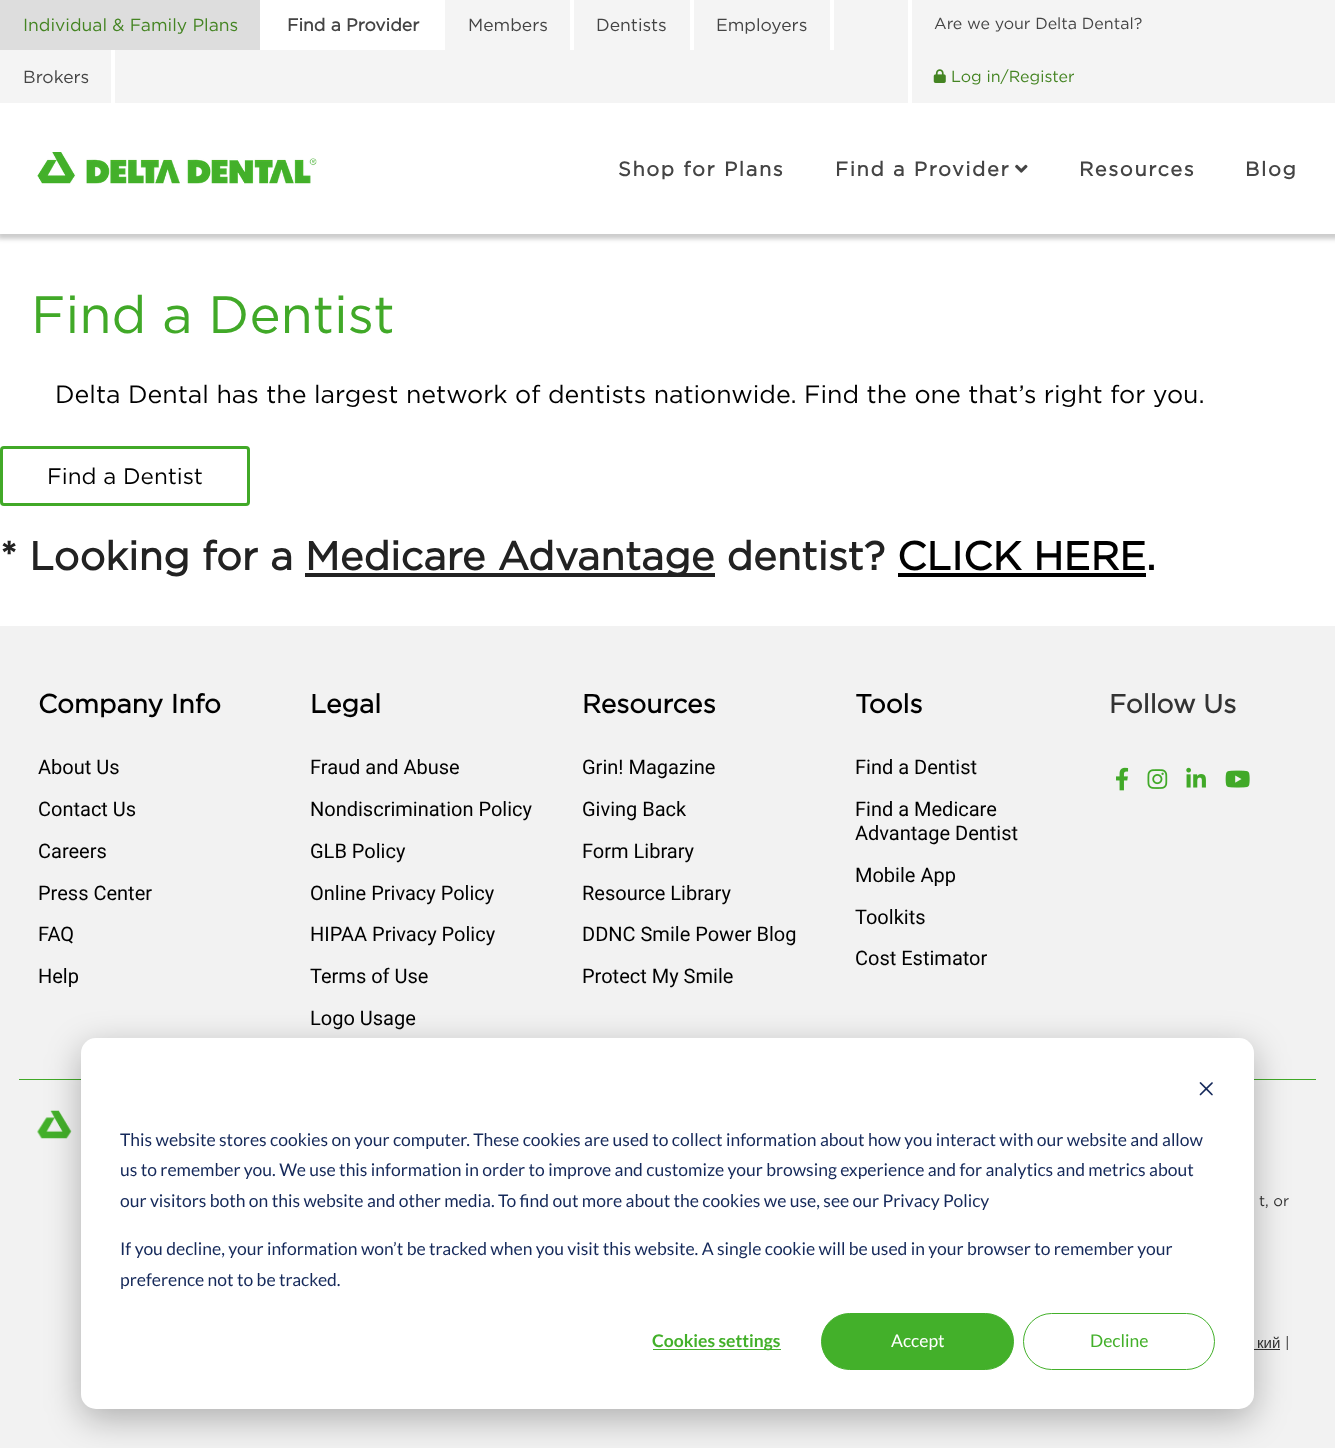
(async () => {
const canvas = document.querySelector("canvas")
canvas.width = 1335
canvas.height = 1448
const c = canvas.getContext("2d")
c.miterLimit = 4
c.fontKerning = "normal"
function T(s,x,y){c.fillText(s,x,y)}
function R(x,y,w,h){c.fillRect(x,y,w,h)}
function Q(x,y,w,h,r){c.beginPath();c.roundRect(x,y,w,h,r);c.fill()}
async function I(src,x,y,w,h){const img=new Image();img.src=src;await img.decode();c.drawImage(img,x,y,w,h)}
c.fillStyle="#fff"
R(0,0,1335,1448)
c.fillStyle="#00000033"
c.filter="blur(2px)"
c.beginPath()
c.rect(-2,100,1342,139)
c.fill()
c.filter="none"
c.fillStyle="#f4f4f4"
R(0,0,1335,103)
c.fillStyle="#ddd"
R(0,0,260,50)
c.fillStyle="#fff"
R(260,0,185,50)
c.font="17.5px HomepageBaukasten"
c.fillStyle="#448422"
T("Individual & Family Plans",23,31)
c.font="bold 17.5px HomepageBaukasten"
c.fillStyle="#444"
T("Find a Provider",287,31)
c.fillStyle="#fff"
R(570,0,4,50)
c.font="17.5px HomepageBaukasten"
c.fillStyle="#444"
T("Members",468,31)
c.fillStyle="#fff"
R(690,0,4,50)
c.fillStyle="#444"
T("Dentists",596,31)
c.fillStyle="#fff"
R(830,0,4,50)
c.fillStyle="#444"
T("Employers",716,31)
c.fillStyle="#fff"
R(111,50,4,53)
c.fillStyle="#444"
T("Brokers",23,83)
c.fillStyle="#fff"
R(908,0,4,103)
c.font="16px HomepageBaukasten"
c.fillStyle="#444"
T("Are we your Delta Dental?",934,29)
await I("1.png",933,69,13,14)
c.fillStyle="#448422"
T("Log in/Register",951,82)
c.fillStyle="#fff"
R(0,103,1335,131)
await I("2.png",37,152,280,32)
c.letterSpacing="1.6px"
c.font="bold 20px HomepageBaukasten"
c.fillStyle="#444"
T("Shop for Plans",618,176)
T("Find a Provider",835,176)
await I("3.png",1015,164,13,9)
T("Resources",1079,176)
T("Blog",1245,176)
c.letterSpacing="0px"
c.font="52.5px HomepageBaukasten"
c.fillStyle="#41a928"
T("Find a Dentist",31,333)
c.font="25px HomepageBaukasten"
c.fillStyle="#000"
T("Delta Dental has the largest network of dentists nationwide. Find the one that’s right for you.",55,403)
c.beginPath()
c.roundRect(1.5,447.5,247,57,2.5)
c.strokeStyle="#41a928"
c.lineWidth=3
c.stroke()
c.font="22.5px HomepageBaukasten"
T("Find a Dentist",47,484)
c.font="bold 40px HomepageBaukasten"
c.fillStyle="#222"
T("* Looking for a",0,570)
R(305,573,410,4)
T("Medicare Advantage dentist?",305,570)
c.fillStyle="#000"
T("CLICK HERE.",897,570)
R(898,573,248,4)
c.fillStyle="#f2f2f2"
R(0,626,1335,822)
c.font="bold 26.25px HomepageBaukasten"
c.fillStyle="#000"
T("Company Info",38,713)
c.font="20px Roboto"
T("About Us",38,774)
T("Contact Us",38,816)
T("Careers",38,858)
T("Press Center",38,900)
T("FAQ",38,941)
T("Help",38,983)
c.font="bold 26.25px HomepageBaukasten"
T("Legal",310,713)
c.font="20px Roboto"
T("Fraud and Abuse",310,774)
T("Nondiscrimination Policy",310,816)
T("GLB Policy",310,858)
T("Online Privacy Policy",310,900)
T("HIPAA Privacy Policy",310,941)
T("Terms of Use",310,983)
T("Logo Usage",310,1025)
c.font="bold 26.25px HomepageBaukasten"
T("Resources",582,713)
c.font="20px Roboto"
T("Grin! Magazine",582,774)
T("Giving Back",582,816)
T("Form Library",582,858)
T("Resource Library",582,900)
T("DDNC Smile Power Blog",582,941)
T("Protect My Smile",582,983)
c.font="bold 26.25px HomepageBaukasten"
T("Tools",855,713)
c.font="20px Roboto"
T("Find a Dentist",855,774)
T("Find a Medicare",855,816)
T("Advantage Dentist",855,840)
T("Mobile App",855,882)
T("Toolkits",855,924)
T("Cost Estimator",855,965)
c.font="bold 26.25px HomepageBaukasten"
c.fillStyle="#333"
T("Follow Us",1109,713)
await I("4.png",1116,767,13,24)
await I("5.png",1147,769,21,20)
await I("6.png",1186,767,20,21)
await I("7.png",1225,770,25,18)
c.fillStyle="#41a928"
R(19,1079,1297,1)
await I("8.png",37,1110,44,29)
c.font="15px HomepageBaukasten"
c.fillStyle="#333"
T("t, or",1259,1206)
c.font="15px Liberation Sans"
T("кий",1257,1348)
R(1254,1349,26,1)
c.font="15px HomepageBaukasten"
T("|",1285,1348)
c.fillStyle="#00000047"
c.filter="blur(17.5px)"
c.beginPath()
c.roundRect(81,1048,1173,371,15)
c.fill()
c.filter="none"
c.fillStyle="#fff"
Q(81,1038,1173,371,15)
await I("9.png",1199,1082,14,14)
c.font="17.5px Lato"
c.fillStyle="#15295a"
T("This website stores cookies on your computer. These cookies are used to collect information about how you interact with our website and allow",120,1146)
T("us to remember you. We use this information in order to improve and customize your browsing experience and for analytics and metrics about",120,1176)
T("our visitors both on this website and other media. To find out more about the cookies we use, see our Privacy Policy",120,1207)
T("If you decline, your information won’t be tracked when you visit this website. A single cookie will be used in your browser to remember your",120,1255)
T("preference not to be tracked.",120,1286)
c.fillStyle="#43b02a"
R(653,1349,128,1)
c.font="bold 17.5px Lato"
T("Cookies settings",652,1347)
c.beginPath()
c.roundRect(821.5,1313.5,192,56,28)
c.fill()
c.strokeStyle="#43b02a"
c.lineWidth=1
c.stroke()
c.font="17.5px Lato"
c.fillStyle="#fff"
T("Accept",891,1347)
c.beginPath()
c.roundRect(1023.5,1313.5,191,56,28)
c.stroke()
c.fillStyle="#43b02a"
T("Decline",1090,1347)
})()
